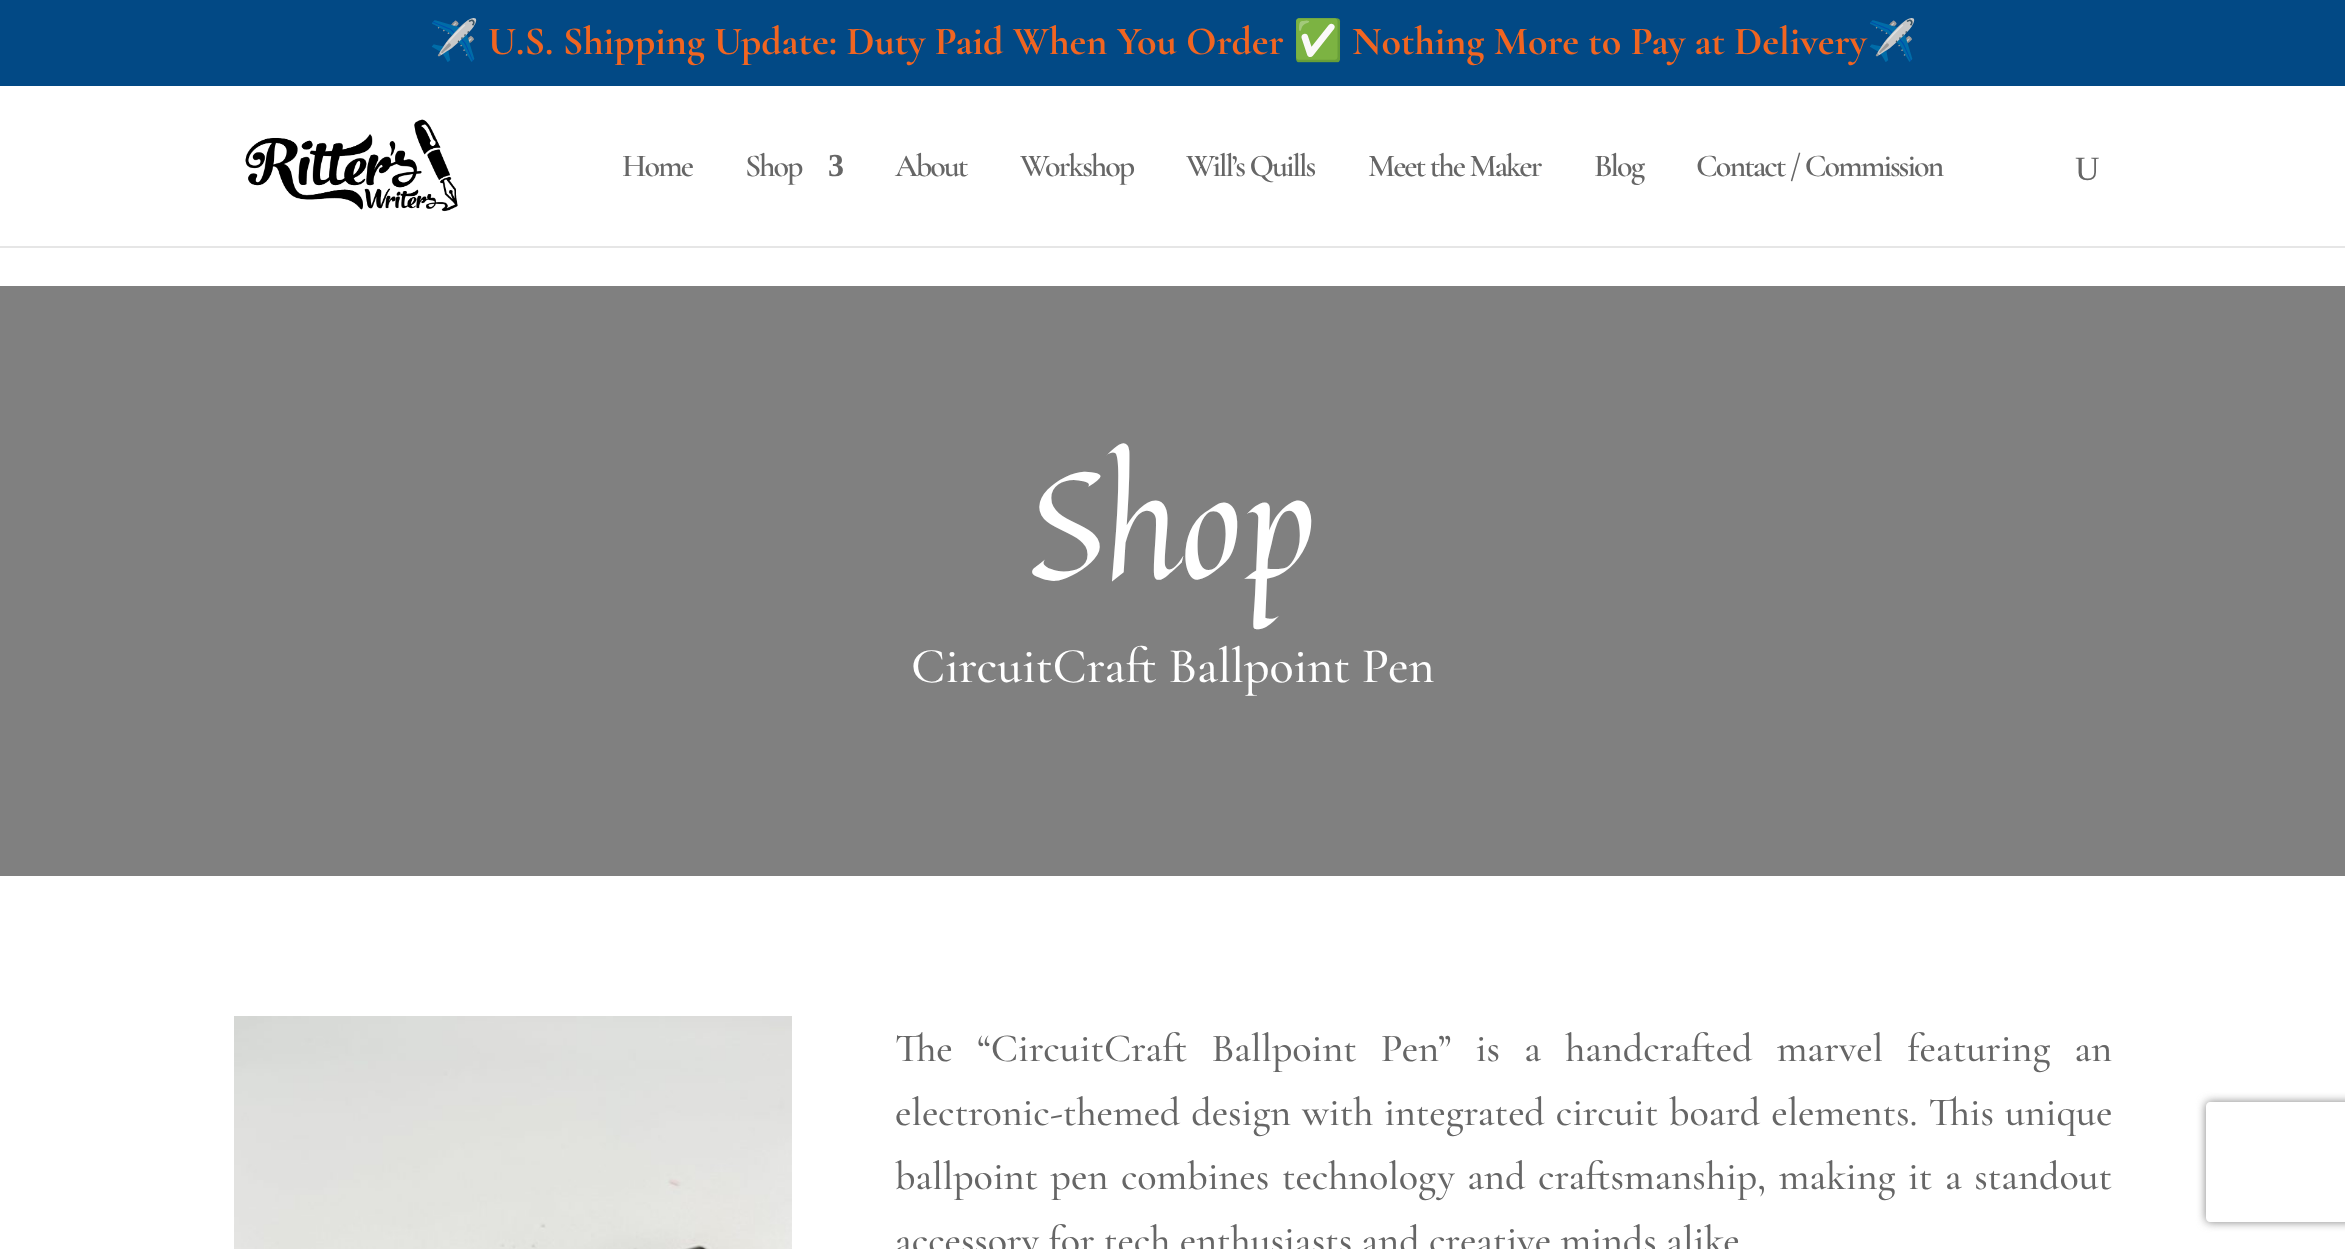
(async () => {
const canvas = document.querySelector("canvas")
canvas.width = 2345
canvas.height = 1249
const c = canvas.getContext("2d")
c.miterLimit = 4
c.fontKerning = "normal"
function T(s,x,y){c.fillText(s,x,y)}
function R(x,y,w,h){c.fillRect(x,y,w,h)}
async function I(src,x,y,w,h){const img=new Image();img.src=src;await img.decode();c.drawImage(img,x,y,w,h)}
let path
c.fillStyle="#fff"
R(0,0,2345,1249)
c.fillStyle="#e6e6e6"
R(0,246,2345,2)
c.fillStyle="#024985"
R(0,0,2345,86)
c.font="bold 40px Noto Color Emoji"
c.fillStyle="#f16521"
T("✈️",429,54)
c.font="300 40px 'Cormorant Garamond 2'"
T("U.S. Shipping Update: Duty Paid When You Order",488,54)
c.font="bold 40px Noto Color Emoji"
T("✅",1293,54)
c.font="300 40px 'Cormorant Garamond 2'"
T("Nothing More to Pay at Delivery",1352,54)
c.font="bold 40px Noto Color Emoji"
T("✈️",1867,54)
await I("1.png",245,119,213,93)
c.letterSpacing="-2px"
c.font="600 32px Cormorant Garamond"
c.fillStyle="#666"
T("Home",622,176)
T("Shop",745,176)
c.font="bold 32px Liberation Serif"
T("3",828,176)
c.font="600 32px Cormorant Garamond"
T("About",895,176)
T("Workshop",1020,176)
T("Will’s Quills",1186,176)
T("Meet the Maker",1368,176)
T("Blog",1594,176)
T("Contact / Commission",1696,176)
c.letterSpacing="0px"
c.font="34px Liberation Serif"
T("U",2075,180)
c.fillStyle="#808080"
R(0,286,2345,590)
c.font="150px Quintessential"
c.fillStyle="#fff"
T("Shop",1030,578)
c.font="300 50px Cormorant Garamond"
T("CircuitCraft Ballpoint Pen",911,682)
await I("2.png",234,1016,558,233)
c.wordSpacing="14.75px"
c.font="300 40px Cormorant Garamond"
c.fillStyle="#666"
T("The “CircuitCraft Ballpoint Pen” is a handcrafted marvel featuring an",895,1061)
c.wordSpacing="1.5px"
T("electronic-themed design with integrated circuit board elements. This unique",895,1125)
c.wordSpacing="3.25px"
T("ballpoint pen combines technology and craftsmanship, making it a standout",895,1189)
c.wordSpacing="0px"
T("accessory for tech enthusiasts and creative minds alike",895,1253)
c.save()
path = new Path2D("M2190 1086h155v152h-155zm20 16h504c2 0 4 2 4 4v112c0 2-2 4-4 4h-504c-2 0-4-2-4-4v-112c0-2 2-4 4-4z")
c.clip(path,"evenodd")
c.fillStyle="#808080"
c.filter="blur(5px)"
c.beginPath()
c.roundRect(2206,1102,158,120,4)
c.fill()
c.filter="none"
c.restore()
})()
